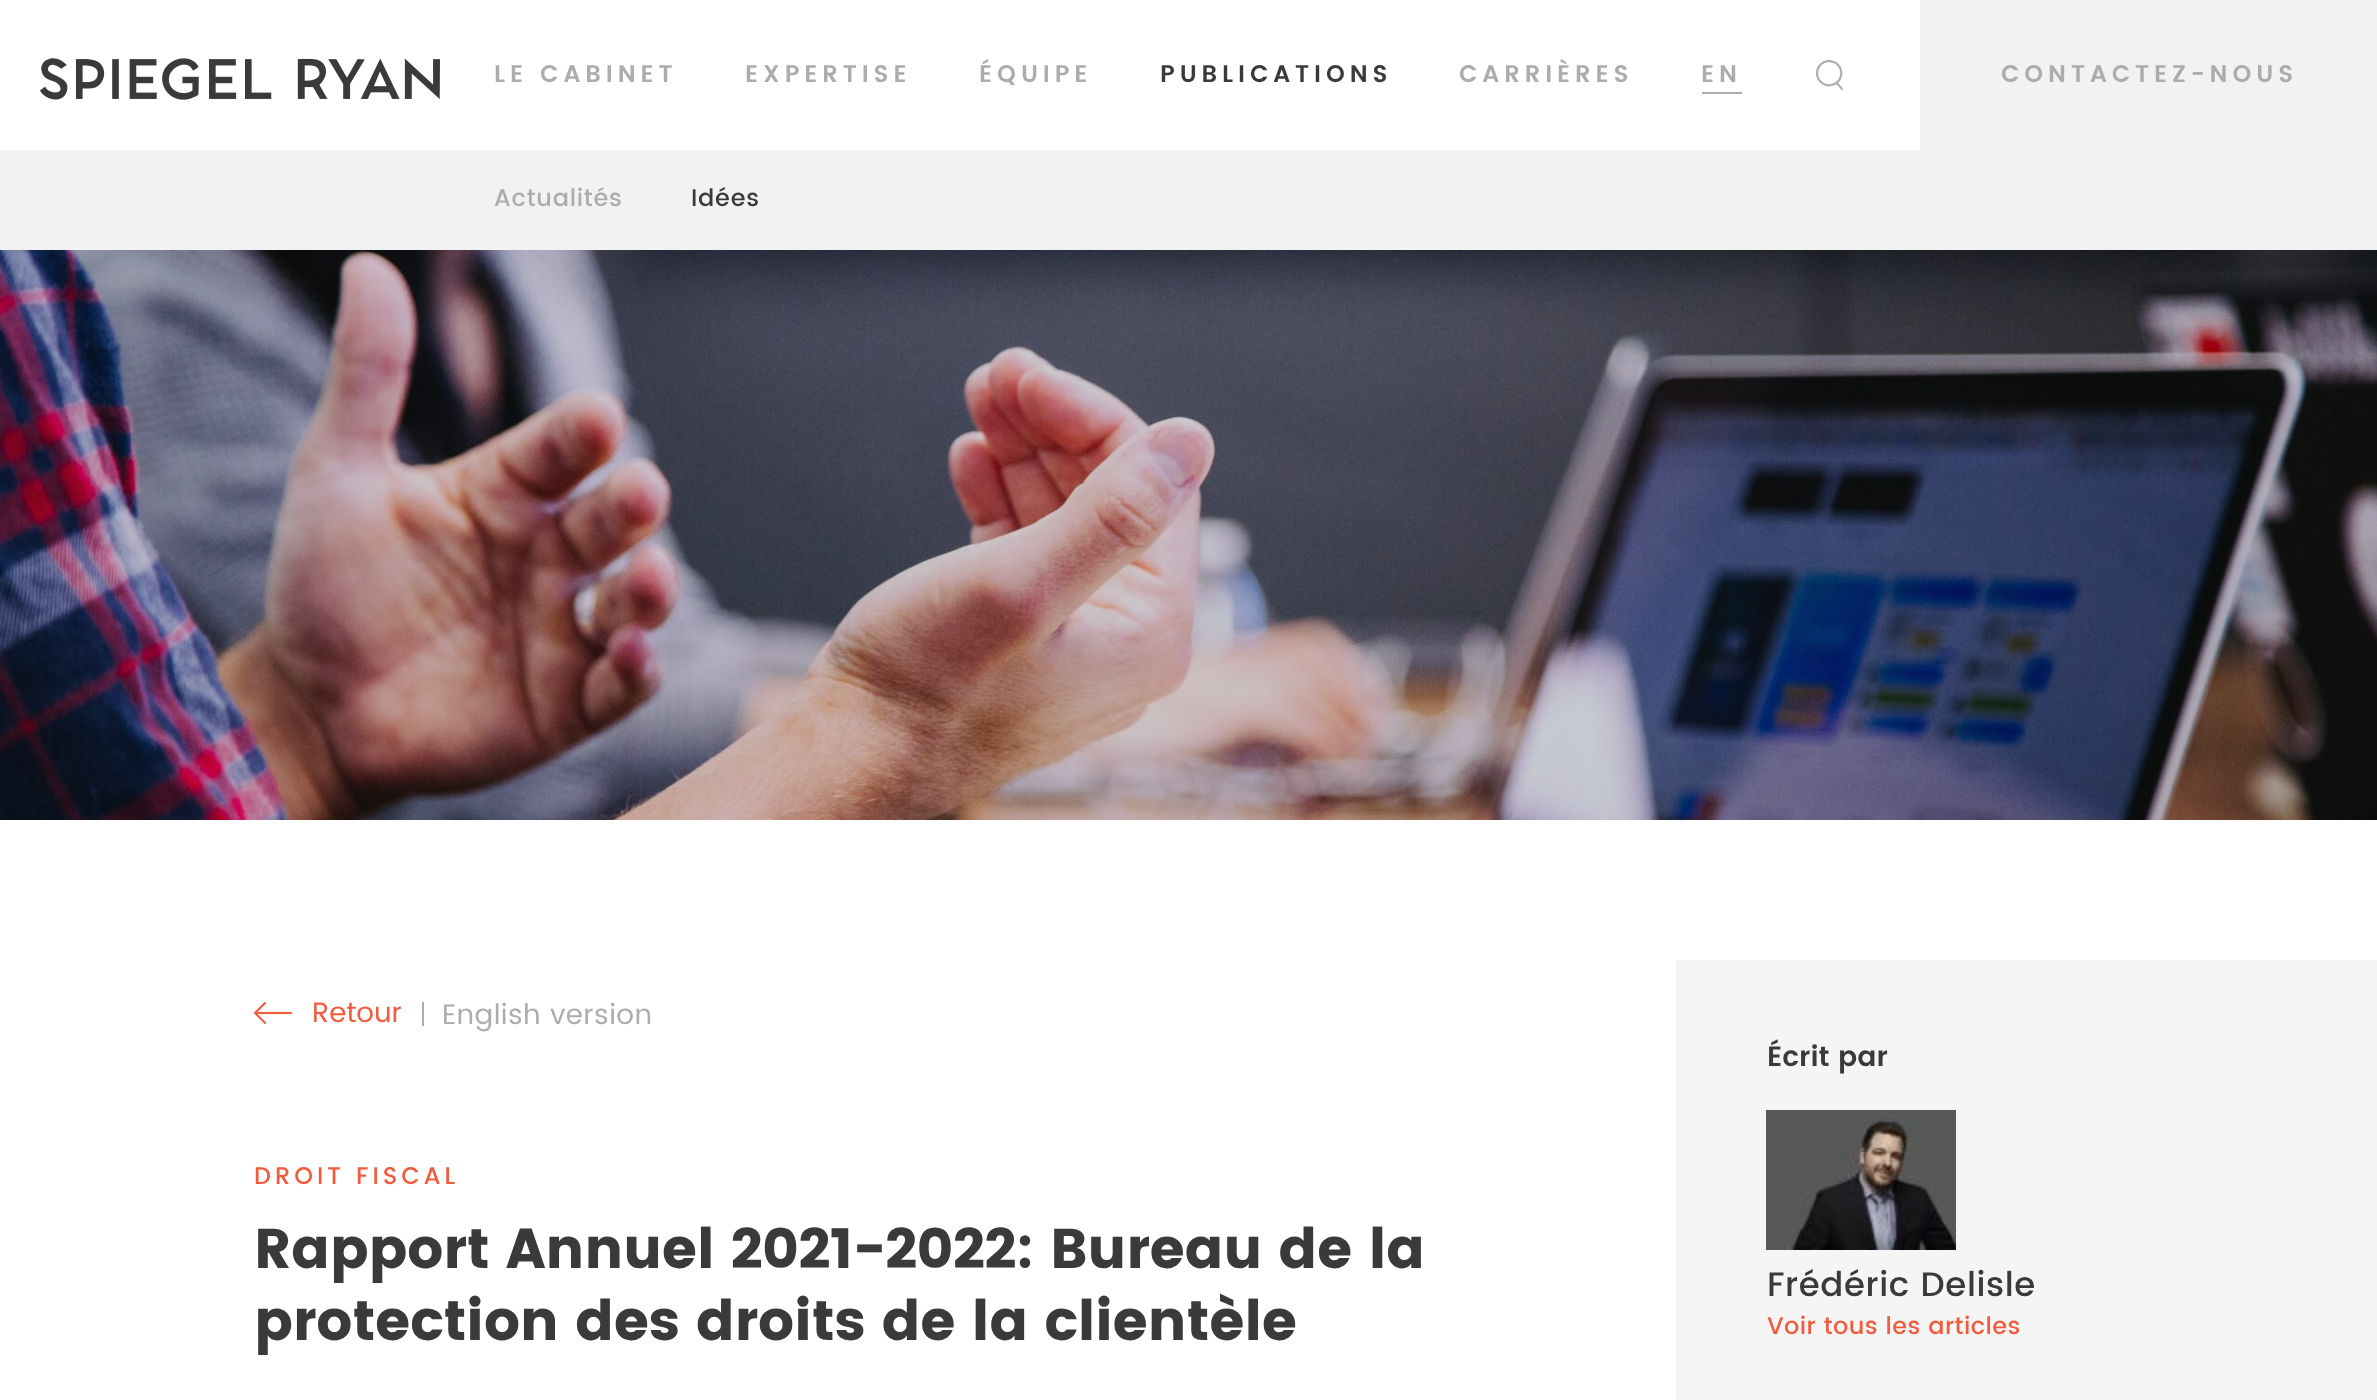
(async () => {
const canvas = document.querySelector("canvas")
canvas.width = 2377
canvas.height = 1400
const c = canvas.getContext("2d")
c.miterLimit = 4
c.fontKerning = "normal"
function T(s,x,y){c.fillText(s,x,y)}
function R(x,y,w,h){c.fillRect(x,y,w,h)}
async function I(src,x,y,w,h){const img=new Image();img.src=src;await img.decode();c.drawImage(img,x,y,w,h)}
let gradient
c.fillStyle="#fff"
R(0,0,2377,1400)
c.fillStyle="#f2f2f2"
R(0,150,2377,100)
await I("1.png",40,58,400,42)
c.letterSpacing="4.9px"
c.font="600 24px Poppins"
c.fillStyle="#acacac"
T("LE CABINET",494,82)
T("EXPERTISE",745,82)
T("ÉQUIPE",979,82)
c.fillStyle="#3a3a3a"
T("PUBLICATIONS",1160,82)
c.fillStyle="#acacac"
T("CARRIÈRES",1459,82)
R(1702,92,40,2)
T("EN",1701,82)
await I("2.png",1816,60,27,30)
c.fillStyle="#f2f2f2"
R(1920,0,457,150)
c.fillStyle="#acacac"
T("CONTACTEZ-NOUS",2001,82)
c.letterSpacing="0.75px"
c.font="500 24px Poppins"
T("Actualités",494,206)
c.fillStyle="#3a3a3a"
T("Idées",691,206)
await I("3.png",0,250,2377,570)
gradient = c.createLinearGradient(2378,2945,0,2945)
gradient.addColorStop(0,"#f5f5f5")
gradient.addColorStop(.49,"#f5f5f5")
gradient.addColorStop(.5,"#fff")
gradient.addColorStop(1,"#fff")
c.fillStyle = gradient
R(1676,960,701,440)
await I("4.png",254,1002,38,22)
c.letterSpacing="0px"
c.font="28px Poppins"
c.fillStyle="#f15b3e"
T("Retour",312,1022)
c.fillStyle="#acacac"
R(422,1002,2,24)
c.letterSpacing="0.4px"
T("English version",442,1024)
c.letterSpacing="4px"
c.font="500 24px Poppins"
c.fillStyle="#f15b3e"
T("DROIT FISCAL",254,1184)
c.letterSpacing="-0.4px"
c.font="bold 56px Poppins"
c.fillStyle="#3a3a3a"
T("Rapport Annuel 2021-2022: Bureau de la",254,1268)
T("protection des droits de la clientèle",254,1340)
c.letterSpacing="0px"
c.font="600 28px Poppins"
T("Écrit par",1767,1066)
await I("5.png",1766,1110,190,140)
c.letterSpacing="0.6px"
c.font="500 34px Poppins"
T("Frédéric Delisle",1767,1296)
c.letterSpacing="0.4px"
c.font="500 24px Poppins"
c.fillStyle="#f15b3e"
T("Voir tous les articles",1767,1334)
})()
